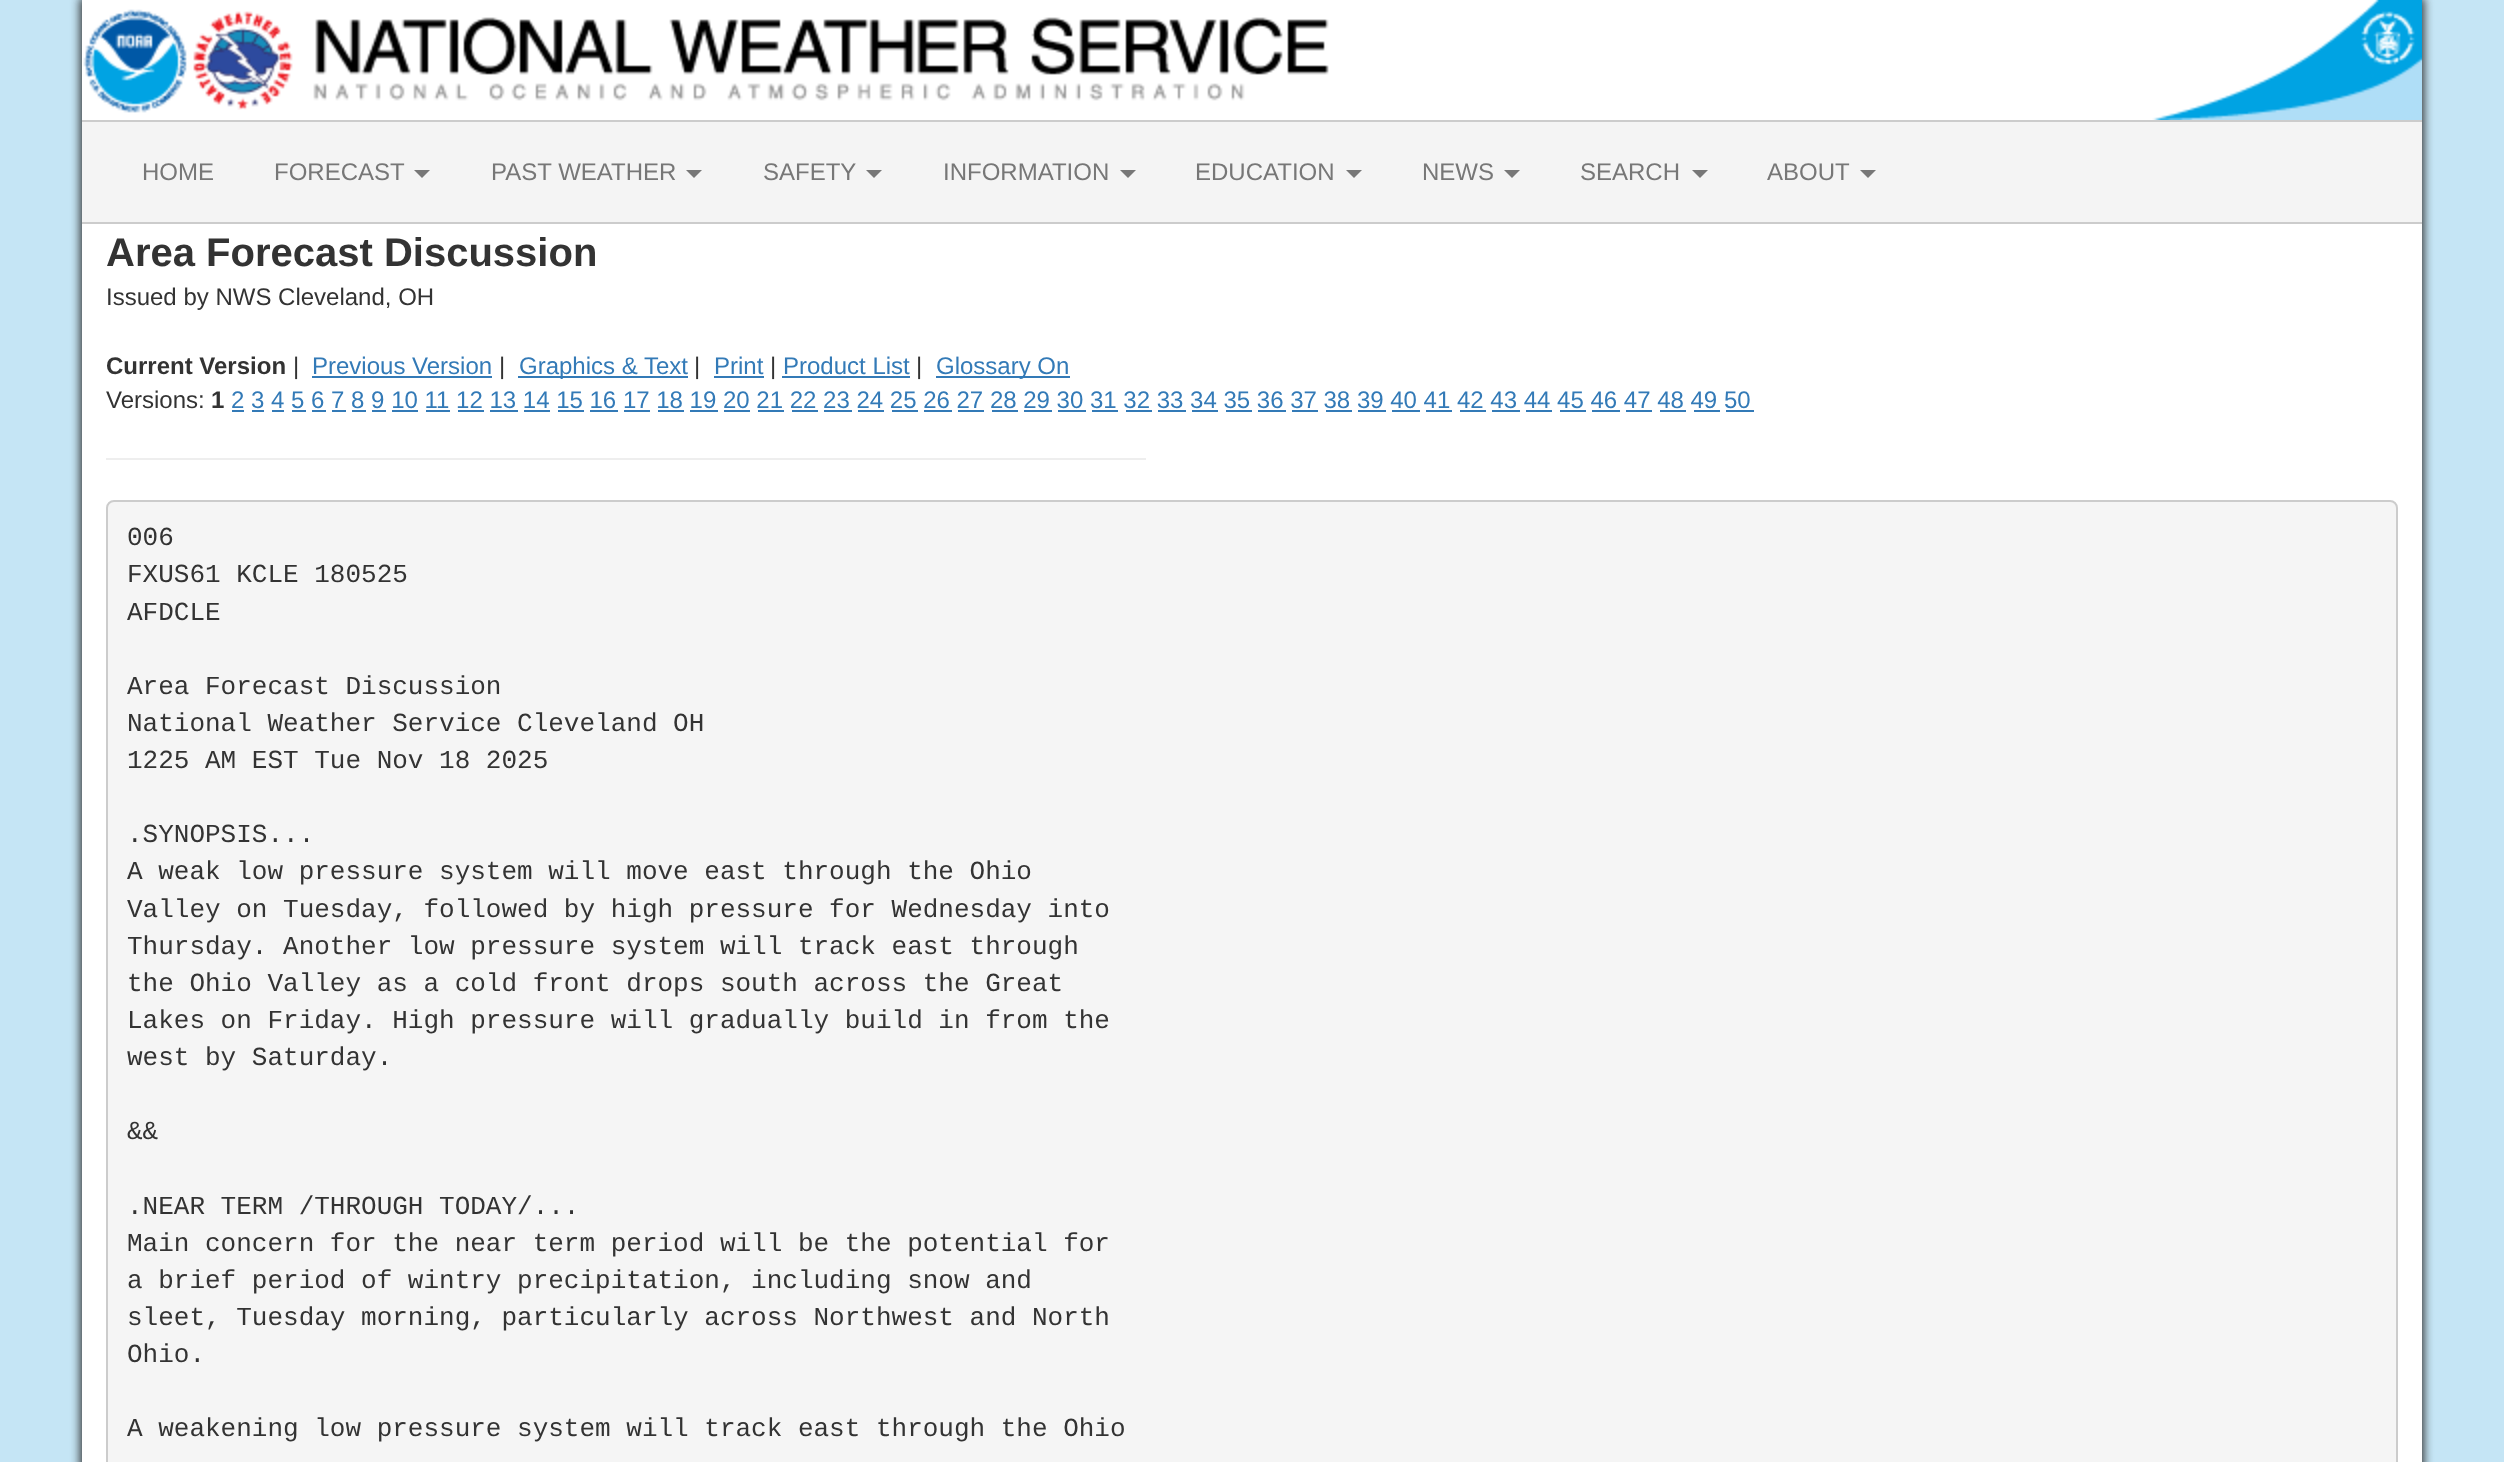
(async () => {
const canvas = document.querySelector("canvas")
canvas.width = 2504
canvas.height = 1462
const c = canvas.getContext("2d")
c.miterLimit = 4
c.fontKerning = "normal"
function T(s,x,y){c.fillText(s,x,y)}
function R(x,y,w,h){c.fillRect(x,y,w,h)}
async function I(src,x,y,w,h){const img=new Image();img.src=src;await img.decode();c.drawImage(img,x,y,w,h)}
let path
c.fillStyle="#c5e5f5"
R(0,0,2504,1462)
c.fillStyle="#333"
c.filter="blur(5px)"
c.beginPath()
c.rect(80,-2,2344,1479)
c.fill()
c.filter="none"
c.fillStyle="#fff"
R(82,0,2340,1462)
await I("1.png",83,9,104,104)
await I("2.png",193,11,1136,99)
await I("3.png",2152,0,270,120)
c.fillStyle="#f4f4f4"
R(82,122,2340,100)
c.fillStyle="#ccc"
R(82,120,2340,2)
R(82,222,2340,2)
c.font="24px Liberation Sans"
c.fillStyle="#777"
T("HOME",142,180)
T("FORECAST",274,180)
path = new Path2D("M414 170h16l-8 8z")
c.fill(path)
T("PAST WEATHER",491,180)
path = new Path2D("M686 170h16l-8 8z")
c.fill(path)
T("SAFETY",763,180)
path = new Path2D("M866 170h16l-8 8z")
c.fill(path)
T("INFORMATION",943,180)
path = new Path2D("M1120 170h16l-8 8z")
c.fill(path)
T("EDUCATION",1195,180)
path = new Path2D("M1346 170h16l-8 8z")
c.fill(path)
T("NEWS",1422,180)
path = new Path2D("M1504 170h16l-8 8z")
c.fill(path)
T("SEARCH",1580,180)
path = new Path2D("M1692 170h16l-8 8z")
c.fill(path)
T("ABOUT",1767,180)
path = new Path2D("M1860 170h16l-8 8z")
c.fill(path)
c.font="bold 40px Liberation Sans"
c.fillStyle="#333"
T("Area Forecast Discussion",106,266)
c.font="24px Liberation Sans"
T("Issued by NWS Cleveland, OH",106,305)
c.font="bold 24px Liberation Sans"
T("Current Version",106,374)
c.font="24px Liberation Sans"
T("|",293,374)
c.fillStyle="#337ab7"
T("Previous Version",312,374)
R(312,376,180,2)
c.fillStyle="#333"
T("|",499,374)
c.fillStyle="#337ab7"
R(518,376,170,2)
T("Graphics & Text",519,374)
c.fillStyle="#333"
T("|",694,374)
c.fillStyle="#337ab7"
T("Print",714,374)
R(714,376,50,2)
c.fillStyle="#333"
T("|",770,374)
c.fillStyle="#337ab7"
T("Product List",783,374)
R(782,376,128,2)
c.fillStyle="#333"
T("|",916,374)
c.fillStyle="#337ab7"
R(936,376,134,2)
T("Glossary On",936,374)
c.fillStyle="#333"
T("Versions:",106,408)
c.font="bold 24px Liberation Sans"
T("1",211,408)
c.font="24px Liberation Sans"
c.fillStyle="#337ab7"
T("2 3 4 5 6 7 8 9 10 11 12 13 14 15 16 17 18 19 20 21 22 23 24 25 26 27 28 29 30 31 32 33 34 35 36 37 38 39 40 41 42 43 44 45 46 47 48 49 50",231,408)
R(232,410,12,2)
R(252,410,12,2)
R(272,410,12,2)
R(292,410,14,2)
R(312,410,14,2)
R(332,410,14,2)
R(352,410,14,2)
R(372,410,14,2)
R(392,410,26,2)
R(426,410,24,2)
R(458,410,26,2)
R(490,410,28,2)
R(524,410,26,2)
R(558,410,26,2)
R(590,410,28,2)
R(624,410,26,2)
R(658,410,26,2)
R(690,410,28,2)
R(724,410,26,2)
R(758,410,26,2)
R(792,410,26,2)
R(824,410,28,2)
R(858,410,26,2)
R(892,410,26,2)
R(924,410,28,2)
R(958,410,26,2)
R(992,410,26,2)
R(1024,410,28,2)
R(1058,410,28,2)
R(1092,410,26,2)
R(1126,410,26,2)
R(1158,410,28,2)
R(1192,410,26,2)
R(1226,410,26,2)
R(1258,410,28,2)
R(1292,410,26,2)
R(1326,410,26,2)
R(1358,410,28,2)
R(1392,410,28,2)
R(1426,410,26,2)
R(1460,410,26,2)
R(1492,410,28,2)
R(1526,410,26,2)
R(1560,410,26,2)
R(1592,410,28,2)
R(1626,410,26,2)
R(1660,410,26,2)
R(1694,410,26,2)
R(1726,410,28,2)
c.fillStyle="#eee"
R(106,458,1040,2)
c.fillStyle="#f5f5f5"
c.beginPath()
c.roundRect(107,501,2290,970,7)
c.fill()
c.strokeStyle="#ccc"
c.lineWidth=2
c.stroke()
c.font="26px Liberation Mono"
c.fillStyle="#333"
T("006",127,545)
T("FXUS61 KCLE 180525",127,582)
T("AFDCLE",127,620)
T("Area Forecast Discussion",127,694)
T("National Weather Service Cleveland OH",127,731)
T("1225 AM EST Tue Nov 18 2025",127,768)
T(".SYNOPSIS...",127,842)
T("A weak low pressure system will move east through the Ohio",127,879)
T("Valley on Tuesday, followed by high pressure for Wednesday into",127,917)
T("Thursday. Another low pressure system will track east through",127,954)
T("the Ohio Valley as a cold front drops south across the Great",127,991)
T("Lakes on Friday. High pressure will gradually build in from the",127,1028)
T("west by Saturday.",127,1065)
T("&&",127,1139)
T(".NEAR TERM /THROUGH TODAY/...",127,1214)
T("Main concern for the near term period will be the potential for",127,1251)
T("a brief period of wintry precipitation, including snow and",127,1288)
T("sleet, Tuesday morning, particularly across Northwest and North",127,1325)
T("Ohio.",127,1362)
T("A weakening low pressure system will track east through the Ohio",127,1436)
})()
